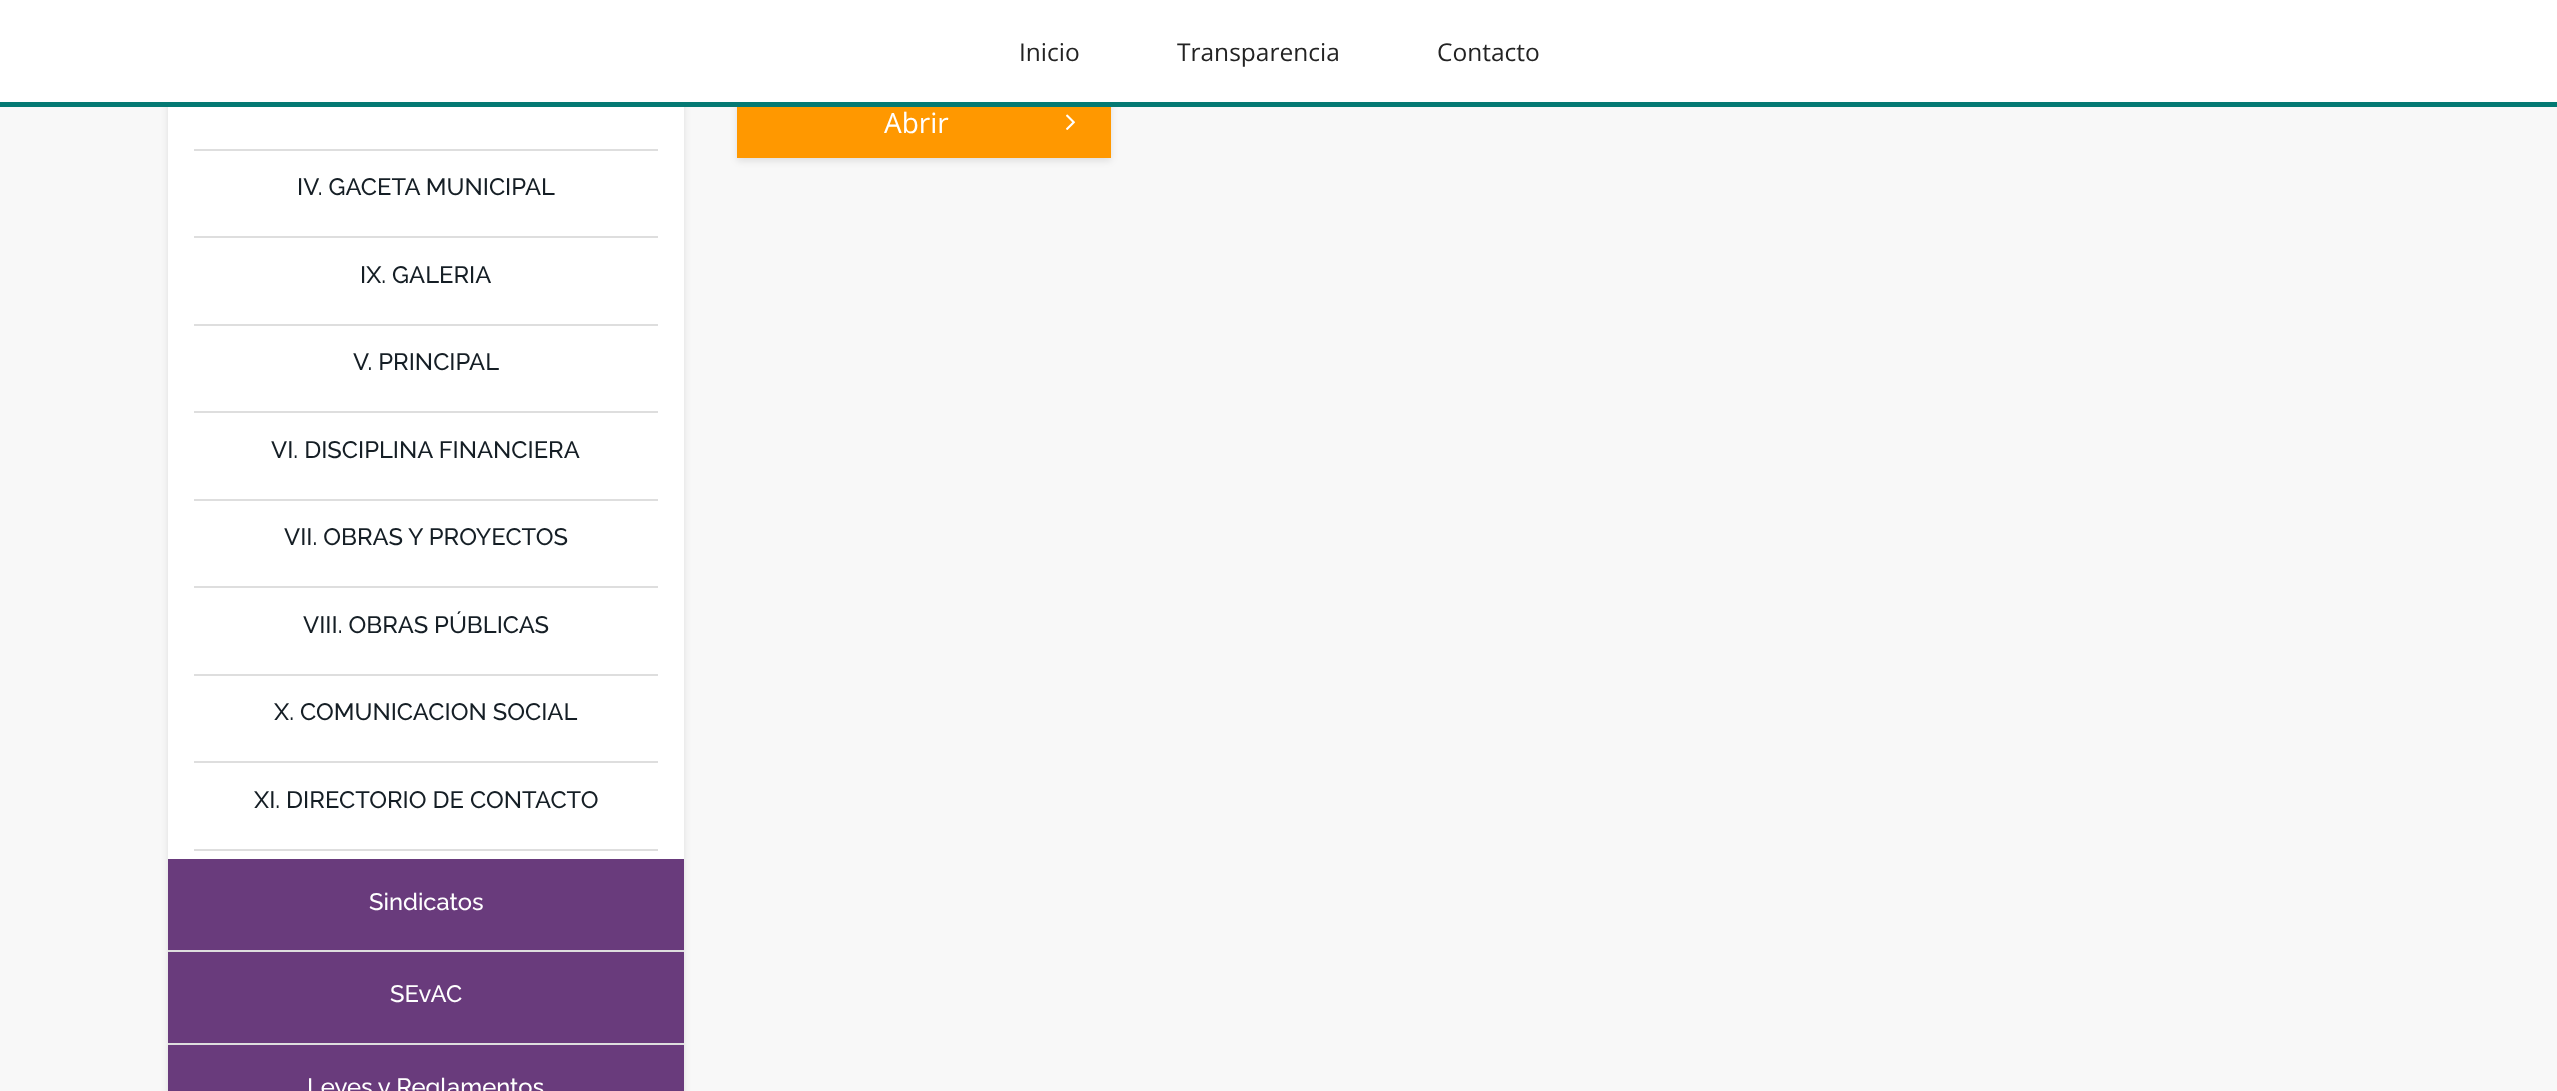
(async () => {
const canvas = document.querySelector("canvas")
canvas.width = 2557
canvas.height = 1091
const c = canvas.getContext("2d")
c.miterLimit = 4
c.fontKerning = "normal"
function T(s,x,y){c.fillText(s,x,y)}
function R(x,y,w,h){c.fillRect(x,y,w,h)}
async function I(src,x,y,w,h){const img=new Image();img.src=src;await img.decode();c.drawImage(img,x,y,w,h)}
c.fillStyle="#f8f8f8"
R(0,0,2557,1091)
c.fillStyle="#0000001a"
c.filter="blur(3.5px)"
c.beginPath()
c.rect(737,-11,374,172)
c.fill()
c.filter="none"
c.filter="blur(3.5px)"
c.beginPath()
c.rect(168,-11,516,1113)
c.fill()
c.filter="none"
c.fillStyle="#fff"
R(0,0,2557,102)
c.fillStyle="#047973"
R(0,102,2557,5)
c.font="24.5px Open Sans"
c.fillStyle="#232323"
T("Inicio",1019,61)
T("Transparencia",1177,61)
T("Contacto",1437,61)
c.fillStyle="#ff9800"
R(737,107,374,51)
c.font="28px Open Sans"
c.fillStyle="#fff"
T("Abrir",884,133)
await I("1.png",1066,114,9,16)
R(168,107,516,752)
c.fillStyle="#dedede"
R(194,149,464,2)
R(194,236,464,2)
c.font="500 23.75px Raleway"
c.fillStyle="#151e25"
T("IV. GACETA MUNICIPAL",297,195)
c.fillStyle="#dedede"
R(194,324,464,2)
c.fillStyle="#151e25"
T("IX. GALERIA",360,283)
c.fillStyle="#dedede"
R(194,411,464,2)
c.fillStyle="#151e25"
T("V. PRINCIPAL",353,370)
c.fillStyle="#dedede"
R(194,499,464,2)
c.fillStyle="#151e25"
T("VI. DISCIPLINA FINANCIERA",271,458)
c.fillStyle="#dedede"
R(194,586,464,2)
c.fillStyle="#151e25"
T("VII. OBRAS Y PROYECTOS",284,545)
c.fillStyle="#dedede"
R(194,674,464,2)
c.fillStyle="#151e25"
T("VIII. OBRAS PÚBLICAS",303,633)
c.fillStyle="#dedede"
R(194,761,464,2)
c.fillStyle="#151e25"
T("X. COMUNICACION SOCIAL",274,720)
c.fillStyle="#dedede"
R(194,849,464,2)
c.fillStyle="#151e25"
T("XI. DIRECTORIO DE CONTACTO",254,808)
c.fillStyle="#693b7c"
R(168,859,516,91)
c.fillStyle="#dedede"
R(168,950,516,2)
c.fillStyle="#fff"
T("Sindicatos",369,910)
c.fillStyle="#693b7c"
R(168,952,516,91)
c.fillStyle="#dedede"
R(168,1043,516,2)
c.fillStyle="#fff"
T("SEvAC",390,1002)
c.fillStyle="#693b7c"
R(168,1045,516,46)
c.fillStyle="#fff"
T("Leyes y Reglamentos",307,1095)
})()
